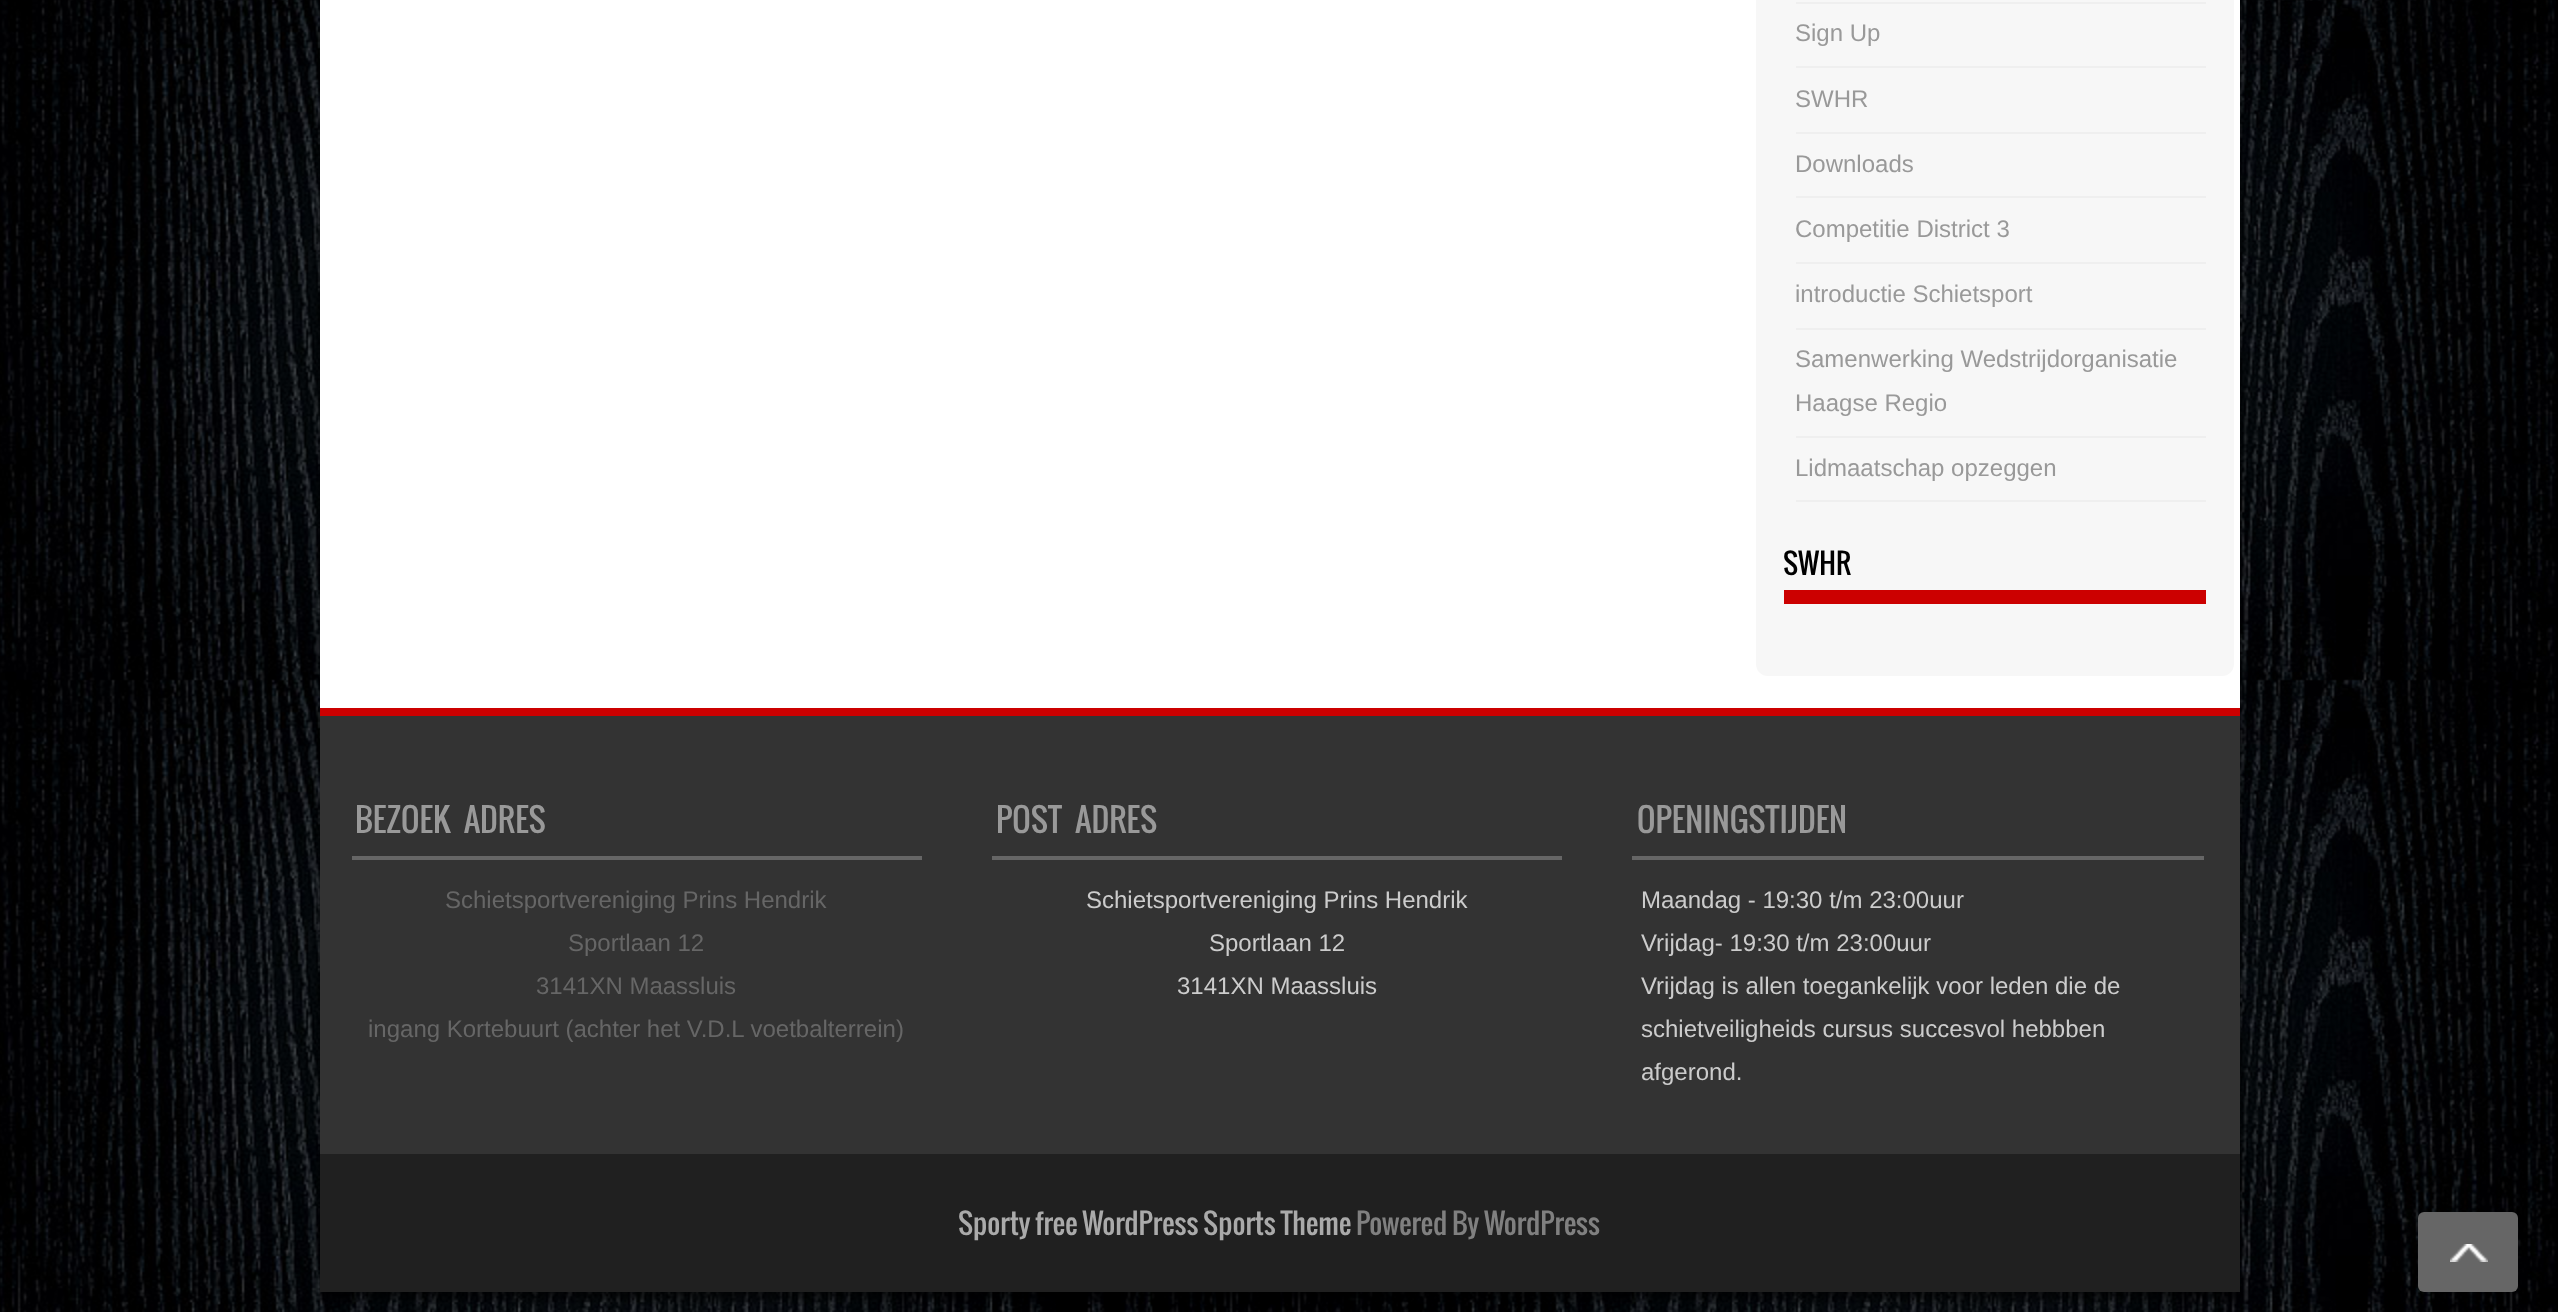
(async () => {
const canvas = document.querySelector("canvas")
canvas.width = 2558
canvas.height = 1312
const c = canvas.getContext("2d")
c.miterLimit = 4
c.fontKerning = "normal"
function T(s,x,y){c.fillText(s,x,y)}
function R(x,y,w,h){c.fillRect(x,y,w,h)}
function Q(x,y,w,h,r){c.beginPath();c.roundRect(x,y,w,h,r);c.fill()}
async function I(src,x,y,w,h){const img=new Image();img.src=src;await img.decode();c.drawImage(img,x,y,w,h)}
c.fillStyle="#fff"
R(0,0,2558,1312)
await I("1.png",0,0,2558,1312)
c.fillStyle="#00000099"
c.filter="blur(4px)"
c.beginPath()
c.rect(320,-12,1920,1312)
c.fill()
c.filter="none"
c.fillStyle="#fff"
R(320,0,1920,708)
c.fillStyle="#f7f7f7"
Q(1756,-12,478,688,12)
c.fillStyle="#efefef"
R(1796,2,410,2)
R(1796,66,410,2)
c.font="24px Liberation Sans"
c.fillStyle="#999"
T("Sign Up",1795,41)
c.fillStyle="#efefef"
R(1796,132,410,2)
c.fillStyle="#999"
T("SWHR",1795,107)
c.fillStyle="#efefef"
R(1796,196,410,2)
c.fillStyle="#999"
T("Downloads",1795,172)
c.fillStyle="#efefef"
R(1796,262,410,2)
c.fillStyle="#999"
T("Competitie District 3",1795,237)
c.fillStyle="#efefef"
R(1796,328,410,2)
c.fillStyle="#999"
T("introductie Schietsport",1795,302)
c.fillStyle="#efefef"
R(1796,436,410,2)
c.fillStyle="#999"
T("Samenwerking Wedstrijdorganisatie",1795,367)
T("Haagse Regio",1795,411)
c.fillStyle="#efefef"
R(1796,500,410,2)
c.fillStyle="#999"
T("Lidmaatschap opzeggen",1795,476)
c.fillStyle="#c00"
R(1784,590,422,14)
c.font="28px Oswald"
c.fillStyle="#000"
T("SWHR",1783,575)
c.fillStyle="#333"
R(320,716,1920,438)
c.fillStyle="#c00"
R(320,708,1920,8)
c.fillStyle="#666"
R(352,856,570,4)
c.wordSpacing="8px"
c.font="32px Oswald"
c.fillStyle="#999"
T("BEZOEK ADRES",355,833)
c.wordSpacing="0px"
c.font="24px Liberation Sans"
c.fillStyle="#666"
T("Schietsportvereniging Prins Hendrik",445,908)
T("Sportlaan 12",568,951)
T("3141XN Maassluis",536,994)
T("ingang Kortebuurt (achter het V.D.L voetbalterrein)",368,1037)
R(992,856,570,4)
c.wordSpacing="8px"
c.font="32px Oswald"
c.fillStyle="#999"
T("POST ADRES",996,833)
c.wordSpacing="0px"
c.font="24px Liberation Sans"
c.fillStyle="#ccc"
T("Schietsportvereniging Prins Hendrik",1086,908)
T("Sportlaan 12",1209,951)
T("3141XN Maassluis",1177,994)
c.fillStyle="#666"
R(1632,856,572,4)
c.font="32px Oswald"
c.fillStyle="#999"
T("OPENINGSTIJDEN",1637,833)
c.font="24px Liberation Sans"
c.fillStyle="#ccc"
T("Maandag - 19:30 t/m 23:00uur",1641,908)
T("Vrijdag- 19:30 t/m 23:00uur",1641,951)
T("Vrijdag is allen toegankelijk voor leden die de",1641,994)
T("schietveiligheids cursus succesvol hebbben",1641,1037)
T("afgerond.",1641,1080)
c.fillStyle="#202020"
R(320,1154,1920,138)
c.font="28px Oswald"
c.fillStyle="#aaa"
T("Sporty free WordPress Sports Theme",958,1235)
c.fillStyle="#808080"
T("Powered By WordPress",1356,1235)
c.fillStyle="#666"
Q(2418,1212,100,80,6)
await I("2.png",2450,1244,38,18)
})()
